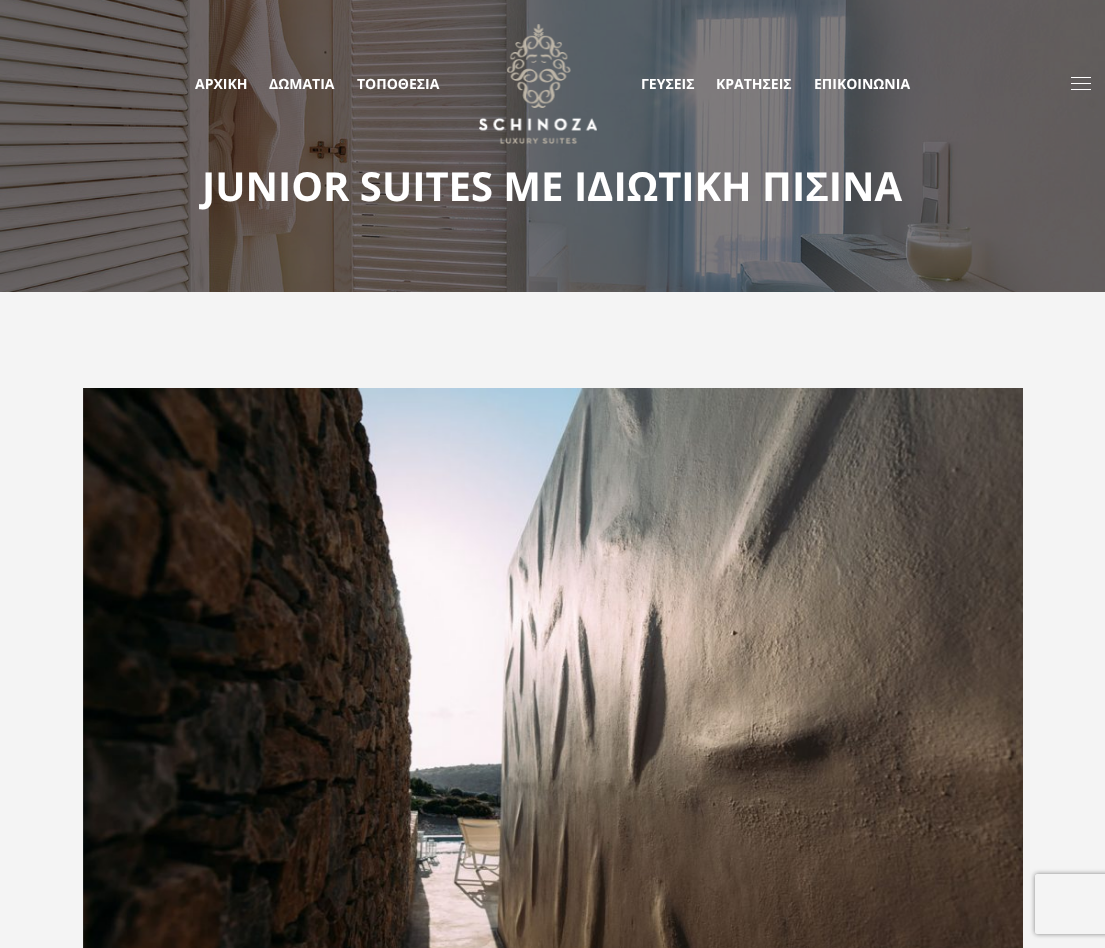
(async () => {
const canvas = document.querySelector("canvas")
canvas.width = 1105
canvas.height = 948
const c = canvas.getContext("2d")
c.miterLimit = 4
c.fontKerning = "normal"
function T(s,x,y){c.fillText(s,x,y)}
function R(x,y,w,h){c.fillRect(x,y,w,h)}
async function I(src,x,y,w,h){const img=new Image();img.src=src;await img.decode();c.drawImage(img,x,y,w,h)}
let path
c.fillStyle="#f4f4f4"
R(0,0,1105,948)
await I("2.png",0,0,1105,292)
c.font="bold 14px Open Sans"
c.fillStyle="#fff"
T("ΑΡΧΙΚΗ",195,89)
T("ΔΩΜΑΤΙΑ",269,89)
T("ΤΟΠΟΘΕΣΙΑ",357,89)
await I("1.png",479,24,118,120)
T("ΓΕΥΣΕΙΣ",641,89)
T("ΚΡΑΤΗΣΕΙΣ",716,89)
T("ΕΠΙΚΟΙΝΩΝΙΑ",814,89)
R(1071,77,20,1)
R(1071,83,20,1)
R(1071,89,20,1)
c.font="bold 40px Open Sans"
T("JUNIOR SUITES ΜΕ ΙΔΙΩΤΙΚΗ ΠΙΣΙΝΑ",202,201)
await I("3.png",83,388,940,560)
c.save()
path = new Path2D("M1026 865h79v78h-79zm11 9h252c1 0 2 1 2 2v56c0 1-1 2-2 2h-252c-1 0-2-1-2-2v-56c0-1 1-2 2-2z")
c.clip(path,"evenodd")
c.fillStyle="#808080"
c.filter="blur(2.5px)"
c.beginPath()
c.roundRect(1035,874,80,60,2)
c.fill()
c.filter="none"
c.restore()
})()
